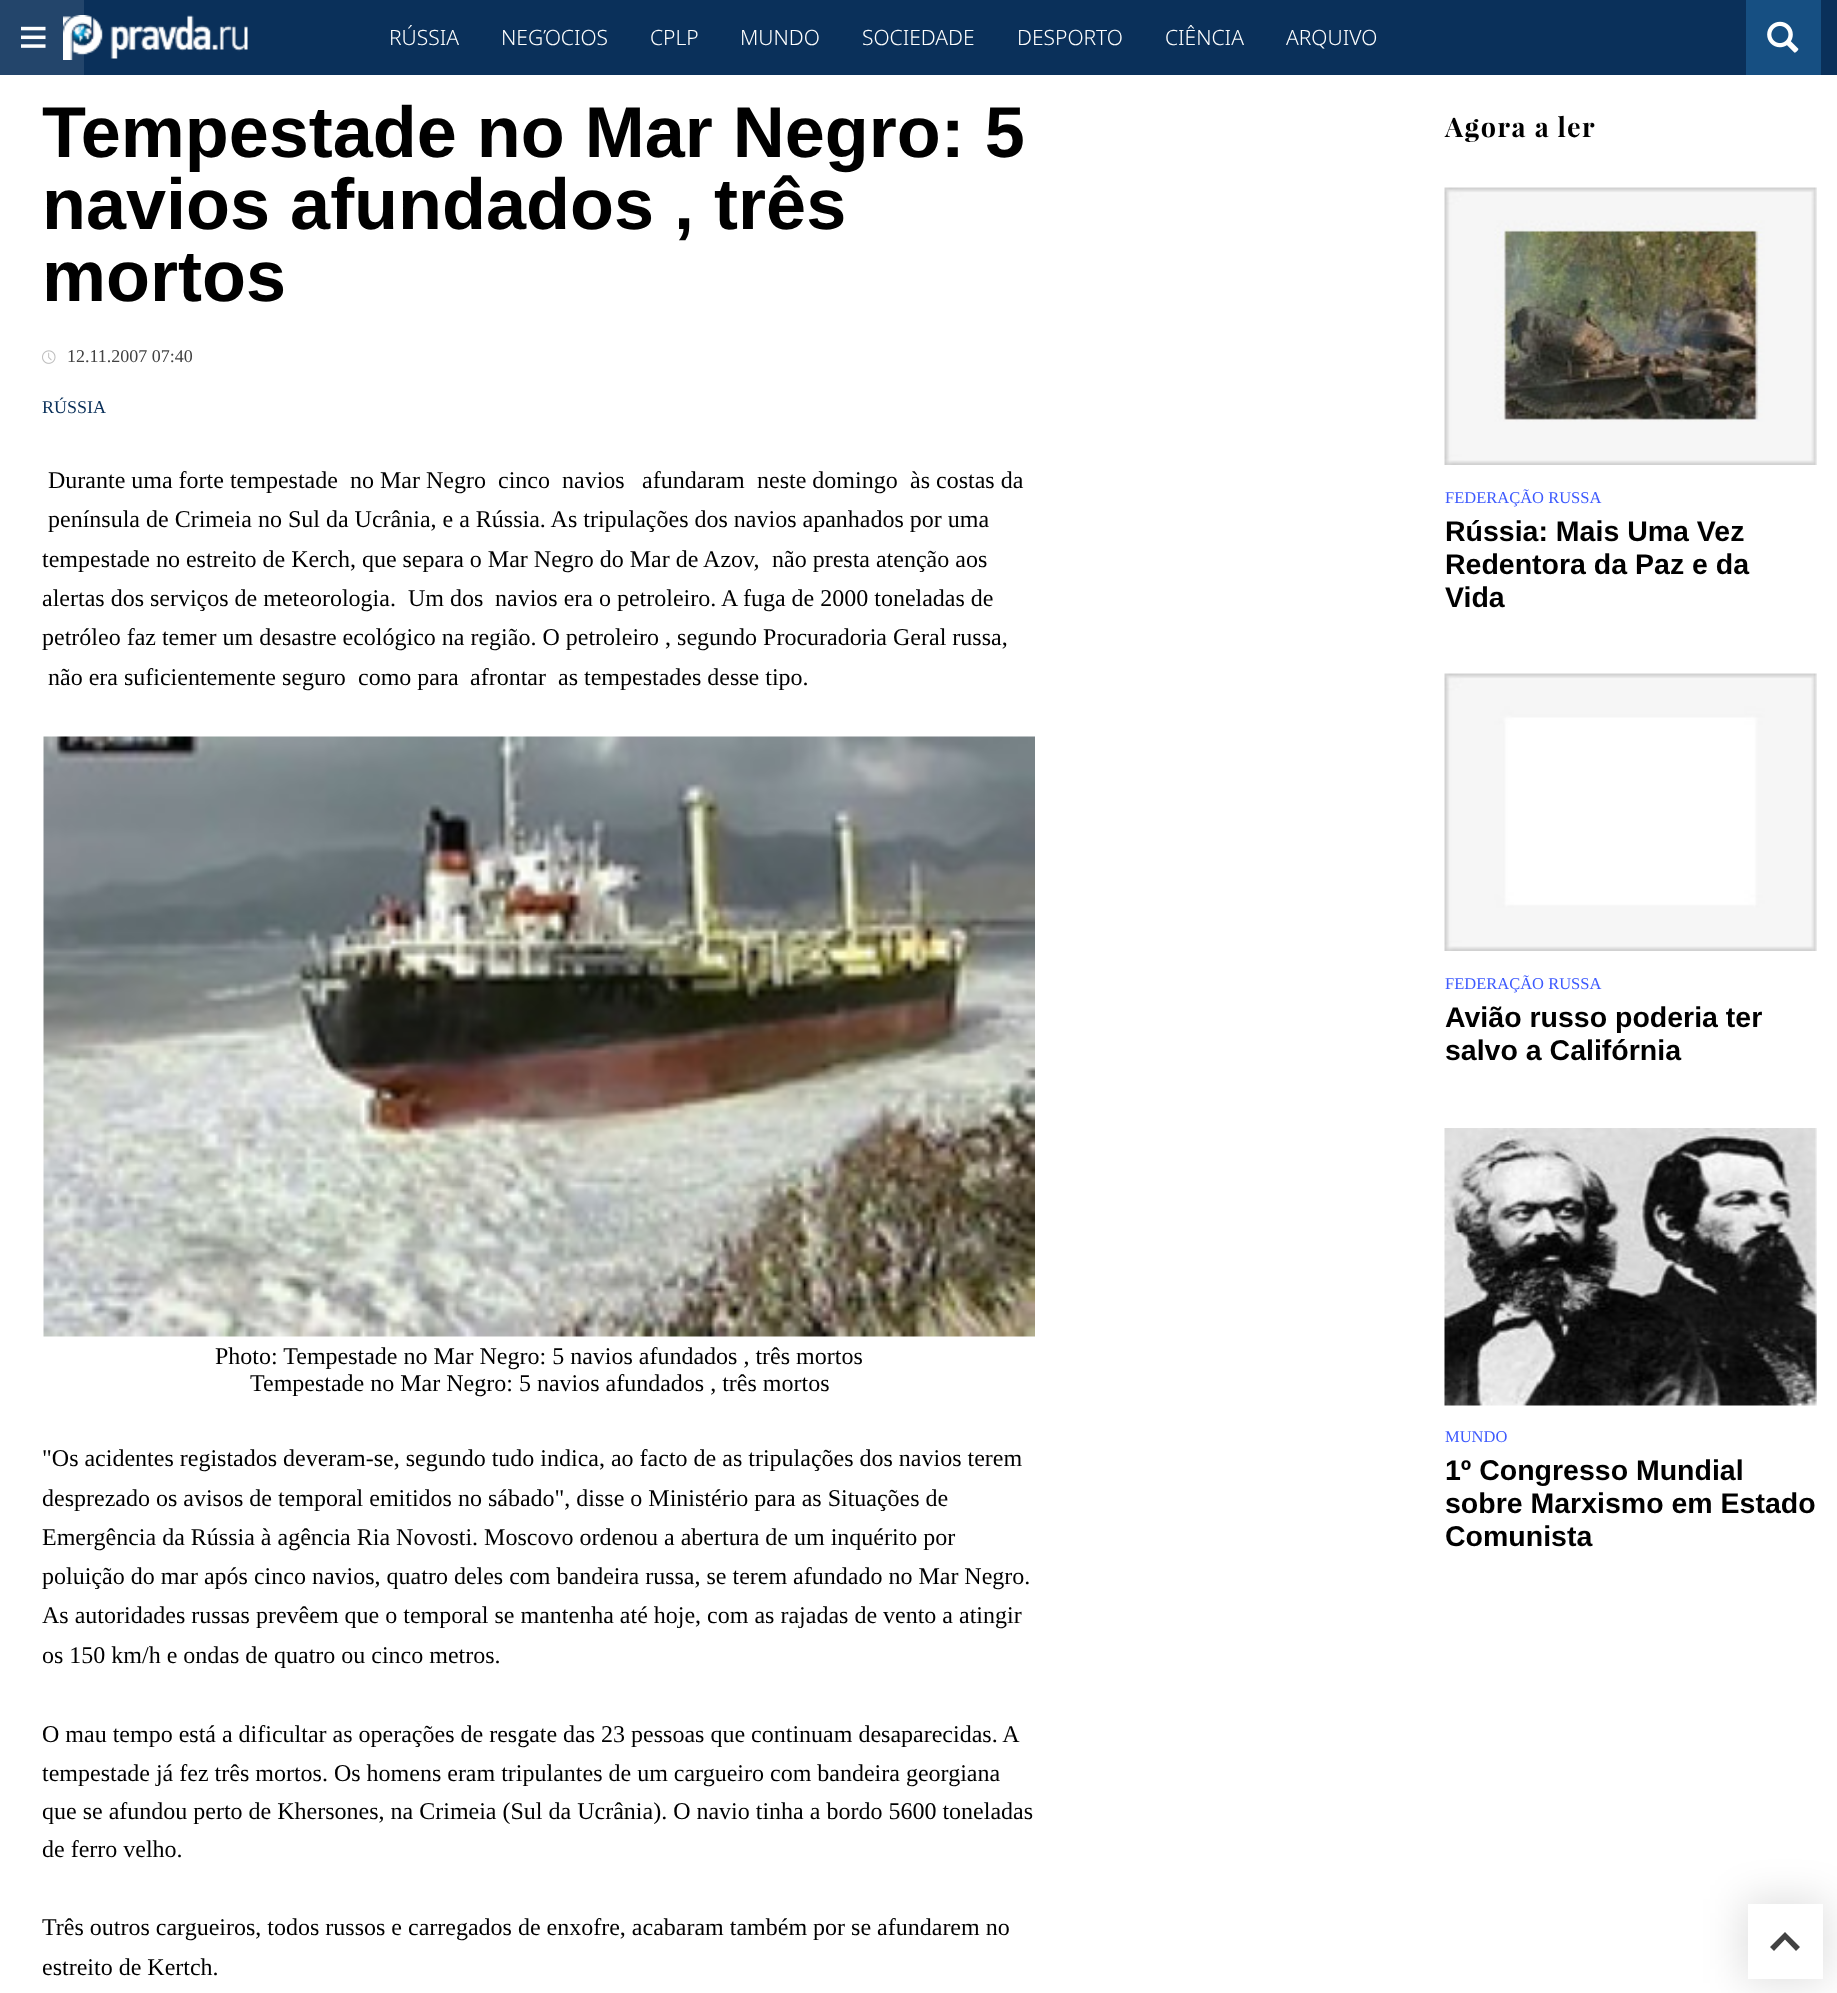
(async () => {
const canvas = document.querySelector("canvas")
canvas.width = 1837
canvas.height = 1993
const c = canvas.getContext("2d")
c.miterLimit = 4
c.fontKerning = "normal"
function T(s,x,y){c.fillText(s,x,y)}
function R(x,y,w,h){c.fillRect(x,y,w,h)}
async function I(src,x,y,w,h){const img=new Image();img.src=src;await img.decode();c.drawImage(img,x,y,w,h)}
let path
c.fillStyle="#fff"
R(0,0,1837,1993)
c.fillStyle="#0a305a"
R(84,0,1753,75)
c.fillStyle="#23456b"
R(0,0,84,75)
await I("1.png",21,26,25,22)
await I("2.png",63,15,185,45)
c.font="300 21px Noto Sans"
c.fillStyle="#fff"
T("RÚSSIA",389,45)
T("NEGΌCIOS",501,45)
T("CPLP",650,45)
T("MUNDO",740,45)
T("SOCIEDADE",862,45)
T("DESPORTO",1017,45)
T("CIÊNCIA",1165,45)
T("ARQUIVO",1286,45)
c.fillStyle="#164f82"
R(1746,0,75,75)
await I("3.png",1767,21,32,32)
c.font="bold 72px Liberation Sans"
c.fillStyle="#000"
T("Tempestade no Mar Negro: 5",42,157)
T("navios afundados , três",42,229)
T("mortos",42,301)
await I("4.png",42,350,14,14)
c.font="18px Liberation Serif"
c.fillStyle="#424242"
T("12.11.2007 07:40",67,362)
c.fillStyle="#0a305a"
T("RÚSSIA",42,413)
c.font="24px Liberation Serif"
c.fillStyle="#000"
T("Durante uma forte tempestade",48,488)
T("no Mar Negro",350,488)
T("cinco",498,488)
T("navios",562,488)
T("afundaram",642,488)
T("neste domingo",757,488)
T("às costas da",910,488)
T("península de Crimeia no Sul da Ucrânia, e a Rússia. As tripulações dos navios apanhados por uma",48,527)
T("tempestade no estreito de Kerch, que separa o Mar Negro do Mar de Azov,",42,567)
T("não presta atenção aos",772,567)
T("alertas dos serviços de meteorologia.",42,606)
T("Um dos",408,606)
T("navios era o petroleiro. A fuga de 2000 toneladas de",495,606)
T("petróleo faz temer um desastre ecológico na região. O petroleiro , segundo Procuradoria Geral russa,",42,645)
T("não era suficientemente seguro",48,685)
T("como para",358,685)
T("afrontar",470,685)
T("as tempestades desse tipo.",558,685)
await I("5.png",43,736,992,601)
T("Photo: Tempestade no Mar Negro: 5 navios afundados , três mortos",215,1364)
T("Tempestade no Mar Negro: 5 navios afundados , três mortos",250,1391)
T("\"Os acidentes registados deveram-se, segundo tudo indica, ao facto de as tripulações dos navios terem",42,1466)
T("desprezado os avisos de temporal emitidos no sábado\", disse o Ministério para as Situações de",42,1506)
T("Emergência da Rússia à agência Ria Novosti. Moscovo ordenou a abertura de um inquérito por",42,1545)
T("poluição do mar após cinco navios, quatro deles com bandeira russa, se terem afundado no Mar Negro.",42,1584)
T("As autoridades russas prevêem que o temporal se mantenha até hoje, com as rajadas de vento a atingir",42,1623)
T("os 150 km/h e ondas de quatro ou cinco metros.",42,1663)
T("O mau tempo está a dificultar as operações de resgate das 23 pessoas que continuam desaparecidas. A",42,1742)
T("tempestade já fez três mortos. Os homens eram tripulantes de um cargueiro com bandeira georgiana",42,1781)
T("que se afundou perto de Khersones, na Crimeia (Sul da Ucrânia). O navio tinha a bordo 5600 toneladas",42,1819)
T("de ferro velho.",42,1857)
T("Três outros cargueiros, todos russos e carregados de enxofre, acabaram também por se afundarem no",42,1935)
T("estreito de Kertch.",42,1975)
c.letterSpacing="1.5px"
c.font="bold 27px Playfair Display"
T("Agora a ler",1445,137)
await I("6.png",1444,187,373,278)
c.letterSpacing="0px"
c.font="16.5px Liberation Serif"
c.fillStyle="#3d5afe"
T("FEDERAÇÃO RUSSA",1445,503)
c.font="bold 28.5px Liberation Sans"
c.fillStyle="#000"
T("Rússia: Mais Uma Vez",1445,541)
T("Redentora da Paz e da",1445,574)
T("Vida",1445,607)
await I("7.png",1444,673,373,278)
c.font="16.5px Liberation Serif"
c.fillStyle="#3d5afe"
T("FEDERAÇÃO RUSSA",1445,989)
c.font="bold 28.5px Liberation Sans"
c.fillStyle="#000"
T("Avião russo poderia ter",1445,1027)
T("salvo a Califórnia",1445,1060)
await I("8.png",1444,1128,373,278)
c.font="16.5px Liberation Serif"
c.fillStyle="#3d5afe"
T("MUNDO",1445,1442)
c.font="bold 28.5px Liberation Sans"
c.fillStyle="#000"
T("1º Congresso Mundial",1445,1480)
T("sobre Marxismo em Estado",1445,1513)
T("Comunista",1445,1546)
c.fillStyle="#00000021"
c.filter="blur(20px)"
c.beginPath()
c.rect(1743,1899,84,84)
c.fill()
c.filter="none"
c.fillStyle="#fff"
R(1748,1904,75,75)
c.fillStyle="#424242"
path = new Path2D("M1785 1932l15 15l-4 4l-11-11.5l-11 11.5l-4-4z")
c.fill(path)
})()
